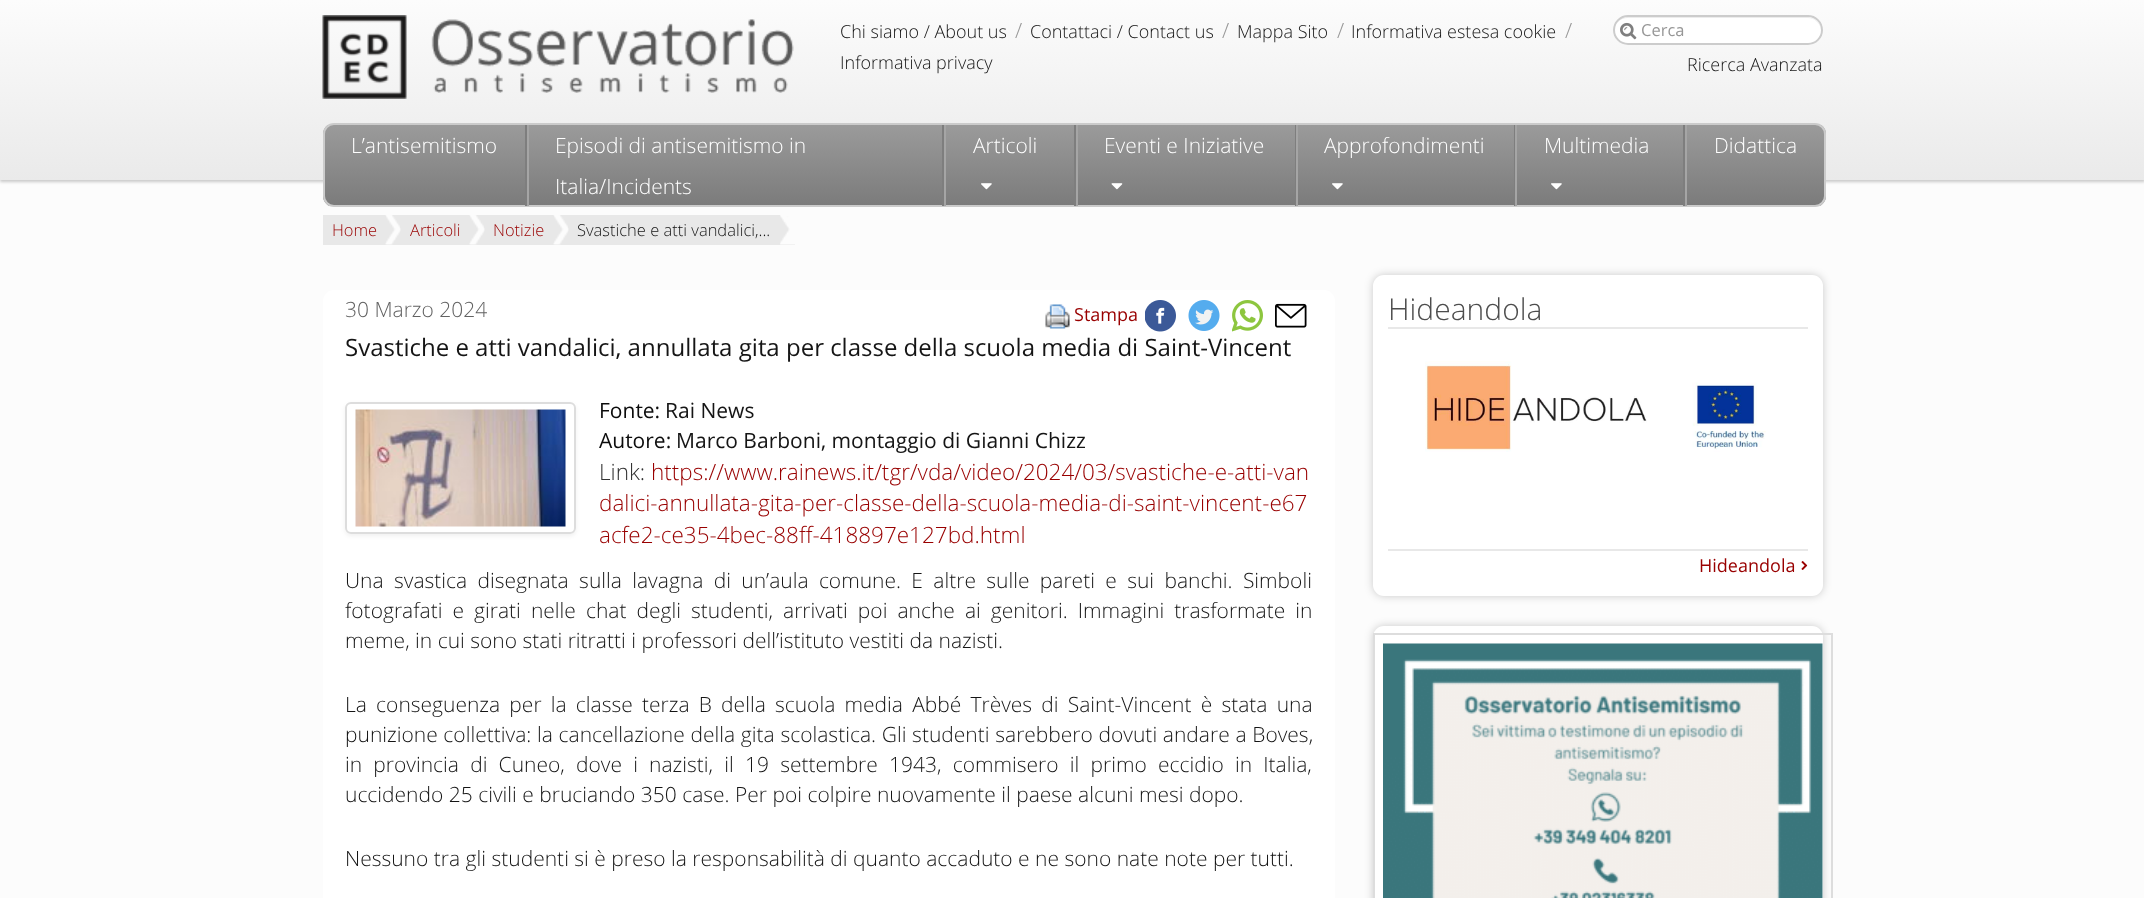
(async () => {
const canvas = document.querySelector("canvas")
canvas.width = 2144
canvas.height = 898
const c = canvas.getContext("2d")
c.miterLimit = 4
c.fontKerning = "normal"
function T(s,x,y){c.fillText(s,x,y)}
function R(x,y,w,h){c.fillRect(x,y,w,h)}
function Q(x,y,w,h,r){c.beginPath();c.roundRect(x,y,w,h,r);c.fill()}
async function I(src,x,y,w,h){const img=new Image();img.src=src;await img.decode();c.drawImage(img,x,y,w,h)}
let gradient, path
c.fillStyle="#fcfcfc"
R(0,0,2144,898)
c.fillStyle="#00000033"
c.filter="blur(1.5px)"
c.beginPath()
c.rect(0,2,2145,180)
c.fill()
c.filter="none"
gradient = c.createLinearGradient(1073,0,1073,180)
gradient.addColorStop(0,"#fcfcfc")
gradient.addColorStop(1,"#eaeaea")
c.fillStyle = gradient
R(0,0,2144,180)
await I("1.png",322,15,85,84)
await I("2.png",431,19,363,74)
c.font="300 18px Open Sans"
c.fillStyle="#151515"
T("Chi siamo / About us",840,38)
c.font="300 21px Open Sans"
c.fillStyle="#979797"
T("/",1015,38)
c.font="300 18px Open Sans"
c.fillStyle="#151515"
T("Contattaci / Contact us",1030,38)
c.font="300 21px Open Sans"
c.fillStyle="#979797"
T("/",1222,38)
c.font="300 18px Open Sans"
c.fillStyle="#151515"
T("Mappa Sito",1237,38)
c.font="300 21px Open Sans"
c.fillStyle="#979797"
T("/",1337,38)
c.font="300 18px Open Sans"
c.fillStyle="#151515"
T("Informativa estesa cookie",1351,38)
c.font="300 21px Open Sans"
c.fillStyle="#979797"
T("/",1565,38)
c.font="300 18px Open Sans"
c.fillStyle="#151515"
T("Informativa privacy",840,69)
c.fillStyle="#fff"
Q(1613,15,210,30,15)
c.fillStyle="#ececec"
path = new Path2D("M1628 18h180c7 0 13 6 13 13c1-21-35-14-43-14h-120c-9 0-45-7-44 14c0-7 6-13 14-13z")
c.fill(path)
c.beginPath()
c.roundRect(1614,16,208,28,14)
c.strokeStyle="#ccc"
c.lineWidth=2
c.stroke()
await I("3.png",1620,22,17,18)
c.font="16.5px Open Sans"
c.fillStyle="#979797"
T("Cerca",1641,36)
c.font="300 18px Open Sans"
c.fillStyle="#151515"
T("Ricerca Avanzata",1687,71)
c.save()
c.beginPath()
c.roundRect(323,123,1503,84,11)
c.clip()
gradient = c.createLinearGradient(1074,124,1074,206)
gradient.addColorStop(0,"#9b9b9b")
gradient.addColorStop(1,"#7b7b7b")
c.fillStyle = gradient
R(323,125,1503,81)
c.restore()
c.beginPath()
c.roundRect(324,124,1501,82,10)
c.strokeStyle="#cbcbcb"
c.stroke()
c.fillStyle="#7e7e7e"
R(525,125,2,81)
c.font="300 21px Open Sans"
c.fillStyle="#fff"
T("L’antisemitismo",351,153)
c.fillStyle="#7e7e7e"
R(942,125,2,81)
c.fillStyle="#a5a5a5"
R(527,125,2,81)
c.fillStyle="#fff"
T("Episodi di antisemitismo in",555,153)
T("Italia/Incidents",555,194)
c.fillStyle="#7e7e7e"
R(1074,125,2,81)
c.fillStyle="#a5a5a5"
R(944,125,2,81)
c.fillStyle="#fff"
T("Articoli",973,153)
await I("4.png",981,183,11,7)
c.fillStyle="#7e7e7e"
R(1295,125,1,81)
c.fillStyle="#a5a5a5"
R(1076,125,2,81)
c.fillStyle="#fff"
T("Eventi e Iniziative",1104,153)
await I("5.png",1111,183,12,7)
c.fillStyle="#7e7e7e"
R(1514,125,1,81)
c.fillStyle="#a5a5a5"
R(1296,125,2,81)
c.fillStyle="#fff"
T("Approfondimenti",1324,153)
await I("4.png",1332,183,11,7)
c.fillStyle="#7e7e7e"
R(1683,125,2,81)
c.fillStyle="#a5a5a5"
R(1515,125,2,81)
c.fillStyle="#fff"
T("Multimedia",1544,153)
await I("4.png",1551,183,11,7)
c.fillStyle="#a5a5a5"
R(1685,125,2,81)
c.fillStyle="#fff"
T("Didattica",1714,153)
c.fillStyle="#e8e8e8"
R(323,215,472,30)
c.font="300 16.5px Open Sans"
c.fillStyle="#900"
T("Home",332,236)
await I("6.png",385,215,16,30)
T("Articoli",410,236)
await I("7.png",469,215,16,30)
T("Notizie",493,236)
await I("6.png",553,215,16,30)
c.fillStyle="#151515"
T("Svastiche e atti vandalici,...",577,236)
await I("8.png",780,215,15,30)
c.fillStyle="#fff"
Q(323,290,1012,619,11)
c.font="300 21px Open Sans"
c.fillStyle="#626262"
T("30 Marzo 2024",345,317)
await I("9.png",1045,304,25,25)
c.font="18px Open Sans"
c.fillStyle="#900"
T("Stampa",1074,321)
await I("10.png",1145,300,31,32)
await I("11.png",1188,300,32,31)
await I("12.png",1232,300,31,32)
await I("13.png",1275,303,32,25)
c.font="24px Open Sans"
c.fillStyle="#151515"
T("Svastiche e atti vandalici, annullata gita per classe della scuola media di Saint-Vincent",345,356)
c.save()
path = new Path2D("M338 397h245v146h-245zm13 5h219c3.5 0 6 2.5 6 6v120c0 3.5-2.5 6-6 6h-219c-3.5 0-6-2.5-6-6v-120c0-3.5 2.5-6 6-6z")
c.clip(path,"evenodd")
c.fillStyle="#0000000f"
c.filter="blur(2px)"
c.beginPath()
c.roundRect(345,404,231,132,6)
c.fill()
c.filter="none"
c.restore()
c.beginPath()
c.roundRect(346,403,229,130,5)
c.strokeStyle="#ddd"
c.stroke()
await I("14.png",355,409,211,118)
c.font="21px Open Sans"
c.fillStyle="#0c0c0c"
T("Fonte:",599,418)
c.fillStyle="#151515"
T("Rai News",665,418)
c.fillStyle="#0c0c0c"
T("Autore:",599,448)
c.fillStyle="#151515"
T("Marco Barboni, montaggio di Gianni Chizz",676,448)
c.font="300 22.5px Open Sans"
c.fillStyle="#333"
T("Link:",599,480)
c.fillStyle="#900"
T("https://www.rainews.it/tgr/vda/video/2024/03/svastiche-e-atti-van",651,480)
T("dalici-annullata-gita-per-classe-della-scuola-media-di-saint-vincent-e67",599,511)
T("acfe2-ce35-4bec-88ff-418897e127bd.html",599,543)
c.wordSpacing="4.9px"
c.font="300 21px Open Sans"
c.fillStyle="#151515"
T("Una svastica disegnata sulla lavagna di un’aula comune. E altre sulle pareti e sui banchi. Simboli",345,588)
c.wordSpacing="4.6px"
T("fotografati e girati nelle chat degli studenti, arrivati poi anche ai genitori. Immagini trasformate in",345,618)
c.wordSpacing="0px"
T("meme, in cui sono stati ritratti i professori dell’istituto vestiti da nazisti.",345,648)
c.wordSpacing="3.75px"
T("La conseguenza per la classe terza B della scuola media Abbé Trèves di Saint-Vincent è stata una",345,712)
c.wordSpacing="0.25px"
T("punizione collettiva: la cancellazione della gita scolastica. Gli studenti sarebbero dovuti andare a Boves,",345,742)
c.wordSpacing="5.75px"
T("in provincia di Cuneo, dove i nazisti, il 19 settembre 1943, commisero il primo eccidio in Italia,",345,772)
c.wordSpacing="0px"
T("uccidendo 25 civili e bruciando 350 case. Per poi colpire nuovamente il paese alcuni mesi dopo.",345,802)
T("Nessuno tra gli studenti si è preso la responsabilità di quanto accaduto e ne sono nate note per tutti.",345,866)
c.fillStyle="#00000033"
c.filter="blur(4px)"
c.beginPath()
c.roundRect(1373,275,450,321,11)
c.fill()
c.filter="none"
c.fillStyle="#fff"
Q(1373,275,450,321,11)
c.font="300 30px Open Sans"
c.fillStyle="#4d4d4d"
T("Hideandola",1388,320)
c.fillStyle="#e8e8e8"
R(1388,327,420,2)
await I("15.png",1425,361,341,91)
R(1388,549,420,2)
c.font="18px Open Sans"
c.fillStyle="#900"
T("Hideandola",1699,572)
await I("16.png",1801,561,7,9)
c.fillStyle="#00000033"
c.filter="blur(4px)"
c.beginPath()
c.roundRect(1373,626,450,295,11)
c.fill()
c.filter="none"
c.fillStyle="#fff"
Q(1373,626,450,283,11)
c.strokeRect(1374,634,458,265)
await I("17.png",1383,643,440,255)
})()
